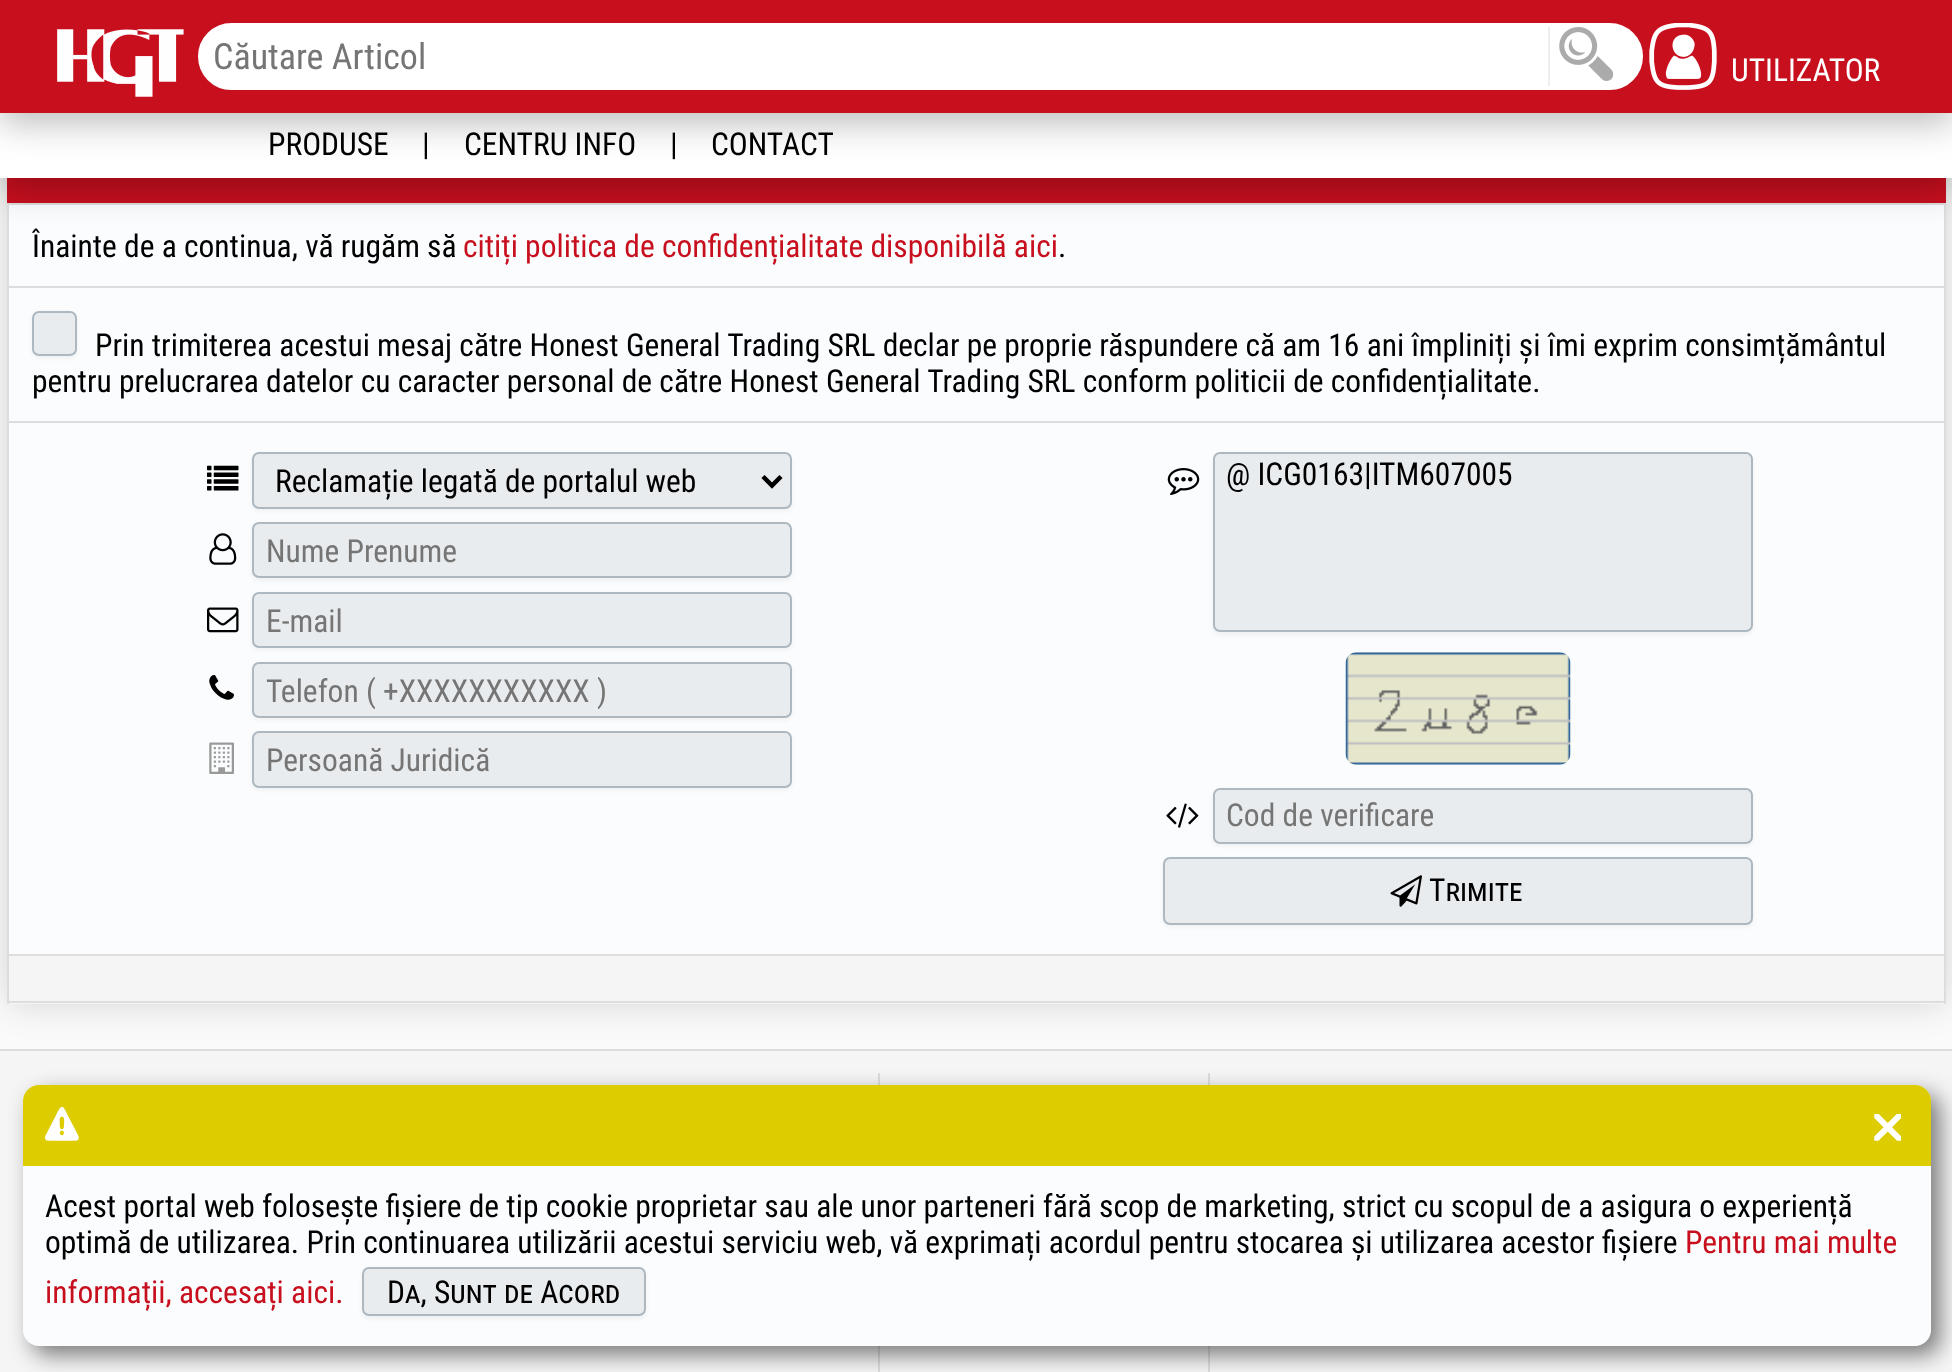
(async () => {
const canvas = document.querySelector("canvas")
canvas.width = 1952
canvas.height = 1372
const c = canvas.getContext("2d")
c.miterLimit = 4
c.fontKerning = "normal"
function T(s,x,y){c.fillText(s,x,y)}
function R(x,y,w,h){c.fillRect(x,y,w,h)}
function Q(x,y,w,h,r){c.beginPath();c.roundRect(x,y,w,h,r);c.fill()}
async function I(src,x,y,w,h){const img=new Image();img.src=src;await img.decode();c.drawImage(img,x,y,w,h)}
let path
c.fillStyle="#fafafa"
R(0,0,1952,1372)
c.fillStyle="#00000026"
c.filter="blur(17px)"
c.beginPath()
c.roundRect(7,122,1939,882,7)
c.fill()
c.filter="none"
c.fillStyle="#fafcfd"
R(9,205,1935,749)
c.fillStyle="#c80f1e"
R(7,178,1939,25)
c.fillStyle="#ddd"
R(7,203,1939,2)
R(1944,203,2,83)
R(7,203,2,83)
c.fillStyle="#00000040"
c.filter="blur(17px)"
c.beginPath()
c.rect(0,124,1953,65)
c.fill()
c.filter="none"
c.fillStyle="#fff"
R(0,113,1952,65)
c.fillStyle="#00000040"
c.filter="blur(17px)"
c.beginPath()
c.rect(0,11,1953,113)
c.fill()
c.filter="none"
c.fillStyle="#c80f1e"
R(0,0,1952,113)
await I("1.png",57,29,127,68)
c.fillStyle="#fff"
c.beginPath()
c.roundRect(200.5,25.5,1440,62,31)
c.fill()
c.strokeStyle="#fff"
c.lineWidth=5
c.stroke()
c.font="36px Roboto Condensed"
c.fillStyle="#757575"
T("Căutare Articol",213,69)
await I("2.png",1559,27,54,54)
c.fillStyle="#eee"
R(1548,27,2,59)
await I("3.png",1649,23,68,67)
c.font="31.5px Roboto Condensed"
c.fillStyle="#fff"
T("UTILIZATOR",1731,81)
c.fillStyle="#000"
T("PRODUSE",268,155)
T("|",422,155)
T("CENTRU INFO",464,155)
T("|",670,155)
T("CONTACT",711,155)
T("Înainte de a continua, vă rugăm să",32,257)
c.fillStyle="#c80f1e"
T("citiți politica de confidențialitate disponibilă aici",463,257)
c.fillStyle="#000"
T(".",1058,257)
c.fillStyle="#ddd"
R(7,286,1939,2)
R(1944,286,2,135)
R(7,286,2,135)
c.fillStyle="#0a0f190d"
c.filter="blur(2px)"
c.beginPath()
c.roundRect(32,313,45,45,7)
c.fill()
c.filter="none"
c.fillStyle="#e9ecee"
c.beginPath()
c.roundRect(33,312,43,43,6)
c.fill()
c.strokeStyle="#adb8c0"
c.lineWidth=2
c.stroke()
c.fillStyle="#000"
T("Prin trimiterea acestui mesaj către Honest General Trading SRL declar pe proprie răspundere că am 16 ani împliniți și îmi exprim consimțământul",95,356)
T("pentru prelucrarea datelor cu caracter personal de către Honest General Trading SRL conform politicii de confidențialitate.",32,392)
c.strokeStyle="#ddd"
c.strokeRect(8,422,1937,533)
await I("4.png",207,465,32,26)
c.fillStyle="#0a0f190d"
c.filter="blur(2px)"
c.beginPath()
c.roundRect(252,455,540,56,7)
c.fill()
c.filter="none"
c.fillStyle="#e9ecee"
c.beginPath()
c.roundRect(253,453,538,55,6)
c.fill()
c.strokeStyle="#adb8c0"
c.stroke()
path = new Path2D("M763 476.5l9 9l9-9")
c.strokeStyle="#000"
c.lineWidth=4.5
c.stroke(path)
c.fillStyle="#000"
T("Reclamație legată de portalul web",275,492)
await I("5.png",1167,468,33,27)
c.fillStyle="#0a0f190d"
c.filter="blur(2px)"
c.beginPath()
c.roundRect(1213,455,540,180,7)
c.fill()
c.filter="none"
c.fillStyle="#e9ecee"
c.beginPath()
c.roundRect(1214,453,538,178,6)
c.fill()
c.strokeStyle="#adb8c0"
c.lineWidth=2
c.stroke()
c.fillStyle="#000"
T("@ ICG0163|ITM607005",1226,485)
await I("6.png",209,533,28,32)
c.fillStyle="#0a0f190d"
c.filter="blur(2px)"
c.beginPath()
c.roundRect(252,524,540,57,7)
c.fill()
c.filter="none"
c.fillStyle="#e9ecee"
c.beginPath()
c.roundRect(253,523,538,54,6)
c.fill()
c.stroke()
c.fillStyle="#757575"
T("Nume Prenume",266,562)
await I("7.png",207,607,32,26)
c.fillStyle="#0a0f190d"
c.filter="blur(2px)"
c.beginPath()
c.roundRect(252,594,540,56,7)
c.fill()
c.filter="none"
c.fillStyle="#e9ecee"
c.beginPath()
c.roundRect(253,593,538,54,6)
c.fill()
c.stroke()
c.fillStyle="#757575"
T("E-mail",266,632)
await I("8.png",209,675,25,25)
c.fillStyle="#0a0f190d"
c.filter="blur(2px)"
c.beginPath()
c.roundRect(252,664,540,56,7)
c.fill()
c.filter="none"
c.fillStyle="#e9ecee"
c.beginPath()
c.roundRect(253,663,538,54,6)
c.fill()
c.stroke()
c.fillStyle="#757575"
T("Telefon ( +XXXXXXXXXXX )",266,702)
await I("9.png",1345,652,226,113)
await I("10.png",209,742,25,32)
c.fillStyle="#0a0f190d"
c.filter="blur(2px)"
c.beginPath()
c.roundRect(252,734,540,56,7)
c.fill()
c.filter="none"
c.fillStyle="#e9ecee"
c.beginPath()
c.roundRect(253,732,538,55,6)
c.fill()
c.stroke()
c.fillStyle="#757575"
T("Persoană Juridică",266,771)
await I("11.png",1166,803,33,25)
c.fillStyle="#0a0f190d"
c.filter="blur(2px)"
c.beginPath()
c.roundRect(1213,790,540,56,7)
c.fill()
c.filter="none"
c.fillStyle="#e9ecee"
c.beginPath()
c.roundRect(1214,789,538,54,6)
c.fill()
c.stroke()
c.fillStyle="#757575"
T("Cod de verificare",1226,826)
c.fillStyle="#0a0f190d"
c.filter="blur(2px)"
c.beginPath()
c.roundRect(1163,860,590,67,7)
c.fill()
c.filter="none"
c.fillStyle="#e9ecee"
c.beginPath()
c.roundRect(1164,858,588,66,6)
c.fill()
c.stroke()
await I("12.png",1390,875,32,32)
c.font="31.5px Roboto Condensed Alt"
c.fillStyle="#000"
T("Trimite",1429,901)
c.fillStyle="#f5f5f5"
R(9,956,1935,48)
c.fillStyle="#ddd"
R(1944,956,2,48)
R(7,1001,1939,2)
R(7,956,2,48)
c.fillStyle="#f5f5f5"
R(0,1051,1952,321)
c.fillStyle="#ddd"
R(0,1049,1952,2)
R(878,1073,2,299)
R(1208,1073,2,299)
c.fillStyle="#00000080"
c.filter="blur(11px)"
c.beginPath()
c.roundRect(32,1094,1908,261,16)
c.fill()
c.filter="none"
c.fillStyle="#fafcfd"
Q(23,1085,1908,261,16)
c.fillStyle="#dc0"
c.beginPath()
c.roundRect(23,1085,1908,81,[16,16,0,0])
c.fill()
await I("13.png",45,1107,34,34)
await I("14.png",1874,1114,27,27)
c.font="31.5px Roboto Condensed"
c.fillStyle="#000"
T("Acest portal web folosește fișiere de tip cookie proprietar sau ale unor parteneri fără scop de marketing, strict cu scopul de a asigura o experiență",45,1217)
T("optimă de utilizarea. Prin continuarea utilizării acestui serviciu web, vă exprimați acordul pentru stocarea și utilizarea acestor fișiere",45,1253)
c.fillStyle="#c80f1e"
T("Pentru mai multe",1685,1253)
T("informații, accesați aici.",45,1303)
c.fillStyle="#0a0f190d"
c.filter="blur(2px)"
c.beginPath()
c.roundRect(362,1269,284,50,7)
c.fill()
c.filter="none"
c.fillStyle="#e9ecee"
c.beginPath()
c.roundRect(363,1268,282,47,6)
c.fill()
c.stroke()
c.font="31.5px Roboto Condensed Alt"
c.fillStyle="#000"
T("Da, Sunt de Acord",387,1303)
})()
